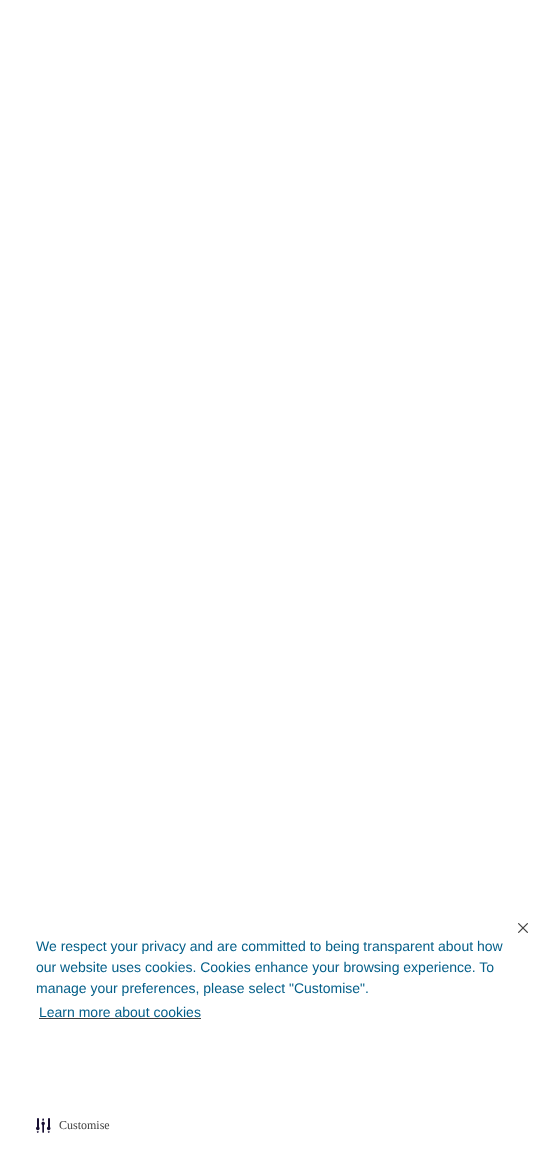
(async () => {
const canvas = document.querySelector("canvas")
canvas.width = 539
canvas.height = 1173
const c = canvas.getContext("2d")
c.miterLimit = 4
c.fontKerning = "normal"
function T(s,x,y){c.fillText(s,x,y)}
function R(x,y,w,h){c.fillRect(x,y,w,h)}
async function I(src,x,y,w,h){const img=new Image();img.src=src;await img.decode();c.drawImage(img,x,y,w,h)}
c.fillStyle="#fff"
R(0,0,539,1173)
c.font="14px Liberation Sans"
c.fillStyle="#035e88"
T("We respect your privacy and are committed to being transparent about how",36,951)
T("our website uses cookies. Cookies enhance your browsing experience. To",36,972)
T("manage your preferences, please select \"Customise\".",36,993)
T("Learn more about cookies",39,1017)
c.fillStyle="#404040"
R(39,1018,162,1)
await I("1.png",518,923,10,10)
await I("2.png",36,1118,15,15)
c.font="12px Liberation Serif"
T("Customise",59,1129)
})()
